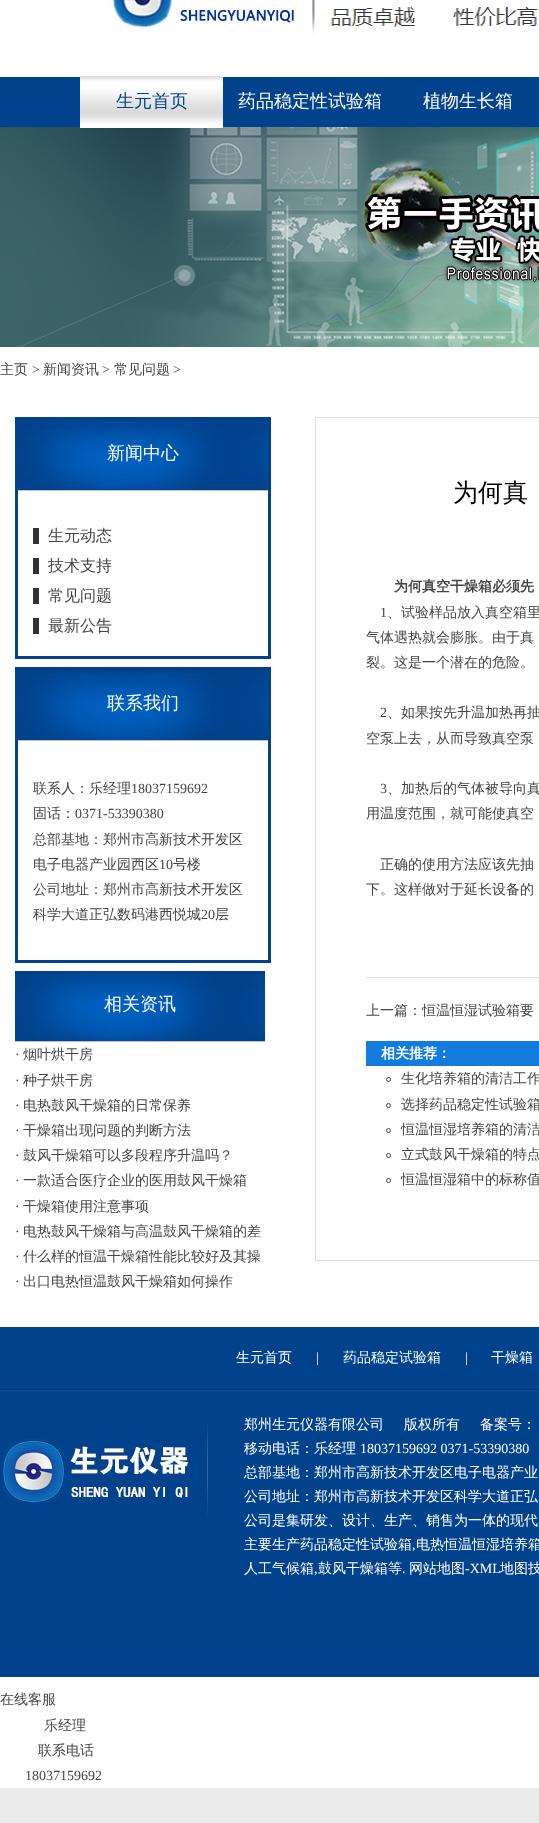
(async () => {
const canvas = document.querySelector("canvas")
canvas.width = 539
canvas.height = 1823
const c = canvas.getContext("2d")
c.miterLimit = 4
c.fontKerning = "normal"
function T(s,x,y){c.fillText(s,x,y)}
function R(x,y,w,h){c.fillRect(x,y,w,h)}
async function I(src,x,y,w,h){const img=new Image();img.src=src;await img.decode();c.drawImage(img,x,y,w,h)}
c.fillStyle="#fff"
R(0,0,539,1823)
await I("1.png",110,0,185,31)
await I("2.png",312,0,226,34)
c.fillStyle="#00428c"
R(0,77,539,50)
await I("4.png",0,127,539,220)
await I("3.png",80,76,143,52)
c.font="500 18px WenQuanYi Zen Hei"
T("生元首页",116,107)
c.fillStyle="#fff"
T("药品稳定性试验箱",238,107)
T("植物生长箱",423,107)
c.font="500 14px WenQuanYi Zen Hei"
c.fillStyle="#444"
T("主页",0,374)
c.font="14px Liberation Serif"
T(">",32,374)
c.font="500 14px WenQuanYi Zen Hei"
T("新闻资讯",43,374)
c.font="14px Liberation Serif"
T(">",102,374)
c.font="500 14px WenQuanYi Zen Hei"
T("常见问题",114,374)
c.font="14px Liberation Serif"
T(">",173,374)
c.strokeStyle="#00428c"
c.lineWidth=3
c.strokeRect(16.5,418.5,253,239)
await I("5.png",18,420,250,70)
c.fillStyle="#bfbfbf"
R(18,490,250,1)
c.font="500 18px WenQuanYi Zen Hei"
c.fillStyle="#fff"
T("新闻中心",107,459)
c.fillStyle="#313131"
R(33,528,6,16)
c.font="500 16px WenQuanYi Zen Hei"
c.fillStyle="#444"
T("生元动态",48,541)
c.fillStyle="#313131"
R(33,558,6,16)
c.fillStyle="#444"
T("技术支持",48,571)
c.fillStyle="#313131"
R(33,588,6,16)
c.fillStyle="#444"
T("常见问题",48,601)
c.fillStyle="#313131"
R(33,618,6,16)
c.fillStyle="#444"
T("最新公告",48,631)
c.strokeRect(16.5,668.5,253,293)
await I("5.png",18,670,250,70)
c.fillStyle="#bfbfbf"
R(18,740,250,1)
c.font="500 18px WenQuanYi Zen Hei"
c.fillStyle="#fff"
T("联系我们",107,709)
c.font="500 14px WenQuanYi Zen Hei"
c.fillStyle="#444"
T("联系人：乐经理",33,793)
c.font="14px Liberation Serif"
T("18037159692",131,793)
c.font="500 14px WenQuanYi Zen Hei"
T("固话：",33,818)
c.font="14px Liberation Serif"
T("0371-53390380",75,818)
c.font="500 14px WenQuanYi Zen Hei"
T("总部基地：郑州市高新技术开发区",33,844)
T("电子电器产业园西区",33,869)
c.font="14px Liberation Serif"
T("10",159,869)
c.font="500 14px WenQuanYi Zen Hei"
T("号楼",173,869)
T("公司地址：郑州市高新技术开发区",33,894)
T("科学大道正弘数码港西悦城",33,919)
c.font="14px Liberation Serif"
T("20",201,919)
c.font="500 14px WenQuanYi Zen Hei"
T("层",215,919)
await I("5.png",15,971,250,70)
c.fillStyle="#bfbfbf"
R(15,1041,250,1)
c.font="500 18px WenQuanYi Zen Hei"
c.fillStyle="#fff"
T("相关资讯",104,1010)
c.font="14px Liberation Serif"
c.fillStyle="#444"
T("·",15,1059)
c.font="500 14px WenQuanYi Zen Hei"
T("烟叶烘干房",23,1059)
c.font="14px Liberation Serif"
T("·",15,1085)
c.font="500 14px WenQuanYi Zen Hei"
T("种子烘干房",23,1085)
c.font="14px Liberation Serif"
T("·",15,1110)
c.font="500 14px WenQuanYi Zen Hei"
T("电热鼓风干燥箱的日常保养",23,1110)
c.font="14px Liberation Serif"
T("·",15,1135)
c.font="500 14px WenQuanYi Zen Hei"
T("干燥箱出现问题的判断方法",23,1135)
c.font="14px Liberation Serif"
T("·",15,1160)
c.font="500 14px WenQuanYi Zen Hei"
T("鼓风干燥箱可以多段程序升温吗？",23,1160)
c.font="14px Liberation Serif"
T("·",15,1185)
c.font="500 14px WenQuanYi Zen Hei"
T("一款适合医疗企业的医用鼓风干燥箱",23,1185)
c.font="14px Liberation Serif"
T("·",15,1211)
c.font="500 14px WenQuanYi Zen Hei"
T("干燥箱使用注意事项",23,1211)
c.font="14px Liberation Serif"
T("·",15,1236)
c.font="500 14px WenQuanYi Zen Hei"
T("电热鼓风干燥箱与高温鼓风干燥箱的差",23,1236)
c.font="14px Liberation Serif"
T("·",15,1261)
c.font="500 14px WenQuanYi Zen Hei"
T("什么样的恒温干燥箱性能比较好及其操",23,1261)
c.font="14px Liberation Serif"
T("·",15,1286)
c.font="500 14px WenQuanYi Zen Hei"
T("出口电热恒温鼓风干燥箱如何操作",23,1286)
c.strokeStyle="#ddd"
c.lineWidth=1
c.strokeRect(315.5,417.5,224,843)
c.font="500 25px WenQuanYi Zen Hei"
c.fillStyle="#000"
T("为何真",453,501)
c.font="bold 14px WenQuanYi Zen Hei"
c.fillStyle="#444"
T("为何真空干燥箱必须先",394,591)
c.font="14px Liberation Serif"
T("1",380,617)
c.font="500 14px WenQuanYi Zen Hei"
T("、试验样品放入真空箱里",387,617)
T("气体遇热就会膨胀。由于真",366,642)
T("裂。这是一个潜在的危险。",366,667)
c.font="14px Liberation Serif"
T("2",380,717)
c.font="500 14px WenQuanYi Zen Hei"
T("、如果按先升温加热再抽",387,717)
T("空泵上去，从而导致真空泵",366,743)
c.font="14px Liberation Serif"
T("3",380,793)
c.font="500 14px WenQuanYi Zen Hei"
T("、加热后的气体被导向真",387,793)
T("用温度范围，就可能使真空",366,818)
T("正确的使用方法应该先抽",380,869)
T("下。这样做对于延长设备的",366,894)
c.fillStyle="#ddd"
R(366,977,173,1)
c.fillStyle="#444"
T("上一篇：恒温恒湿试验箱要",366,1015)
c.fillStyle="#137bde"
R(366,1041,173,25)
c.font="bold 14px WenQuanYi Zen Hei"
c.fillStyle="#fff"
T("相关推荐：",381,1058)
c.beginPath()
c.arc(388.5,1079.5,2,0,7)
c.strokeStyle="#444"
c.stroke()
c.font="500 14px WenQuanYi Zen Hei"
c.fillStyle="#444"
T("生化培养箱的清洁工作",401,1083)
c.beginPath()
c.arc(388.5,1105.5,2,0,7)
c.stroke()
T("选择药品稳定性试验箱",401,1109)
c.beginPath()
c.arc(388.5,1130.5,2,0,7)
c.stroke()
T("恒温恒湿培养箱的清洁",401,1134)
c.beginPath()
c.arc(388.5,1155.5,2,0,7)
c.stroke()
T("立式鼓风干燥箱的特点",401,1159)
c.beginPath()
c.arc(388.5,1180.5,2,0,7)
c.stroke()
T("恒温恒湿箱中的标称值",401,1184)
await I("6.png",0,1327,539,350)
c.fillStyle="#fff"
T("生元首页",236,1362)
c.font="14px Liberation Serif"
T("|",316,1362)
c.font="500 14px WenQuanYi Zen Hei"
T("药品稳定试验箱",343,1362)
c.font="14px Liberation Serif"
T("|",465,1362)
c.font="500 14px WenQuanYi Zen Hei"
T("干燥箱",491,1362)
await I("7.png",207,1421,1,96)
await I("8.png",0,1439,192,64)
T("郑州生元仪器有限公司",244,1429)
T("版权所有",404,1429)
T("备案号：",480,1429)
T("移动电话：乐经理",244,1453)
c.font="14px Liberation Serif"
T("18037159692 0371-53390380",360,1453)
c.font="500 14px WenQuanYi Zen Hei"
T("总部基地：郑州市高新技术开发区电子电器产业",244,1477)
T("公司地址：郑州市高新技术开发区科学大道正弘",244,1501)
T("公司是集研发、设计、生产、销售为一体的现代",244,1525)
T("主要生产药品稳定性试验箱",244,1549)
c.font="14px Liberation Serif"
T(",",412,1549)
c.font="500 14px WenQuanYi Zen Hei"
T("电热恒温恒湿培养箱",416,1549)
T("人工气候箱",244,1573)
T("鼓风干燥箱等",318,1573)
T("网站地图",409,1573)
c.font="14px Liberation Serif"
T("-XML",465,1573)
c.font="500 14px WenQuanYi Zen Hei"
T("地图技",500,1573)
c.font="14px Liberation Serif"
T(",",314,1573)
T(".",402,1573)
c.font="500 14px WenQuanYi Zen Hei"
c.fillStyle="#444"
T("在线客服",0,1704)
T("乐经理",44,1730)
T("联系电话",38,1755)
c.font="14px Liberation Serif"
T("18037159692",25,1780)
c.fillStyle="#ebebeb"
R(0,1788,539,35)
})()
